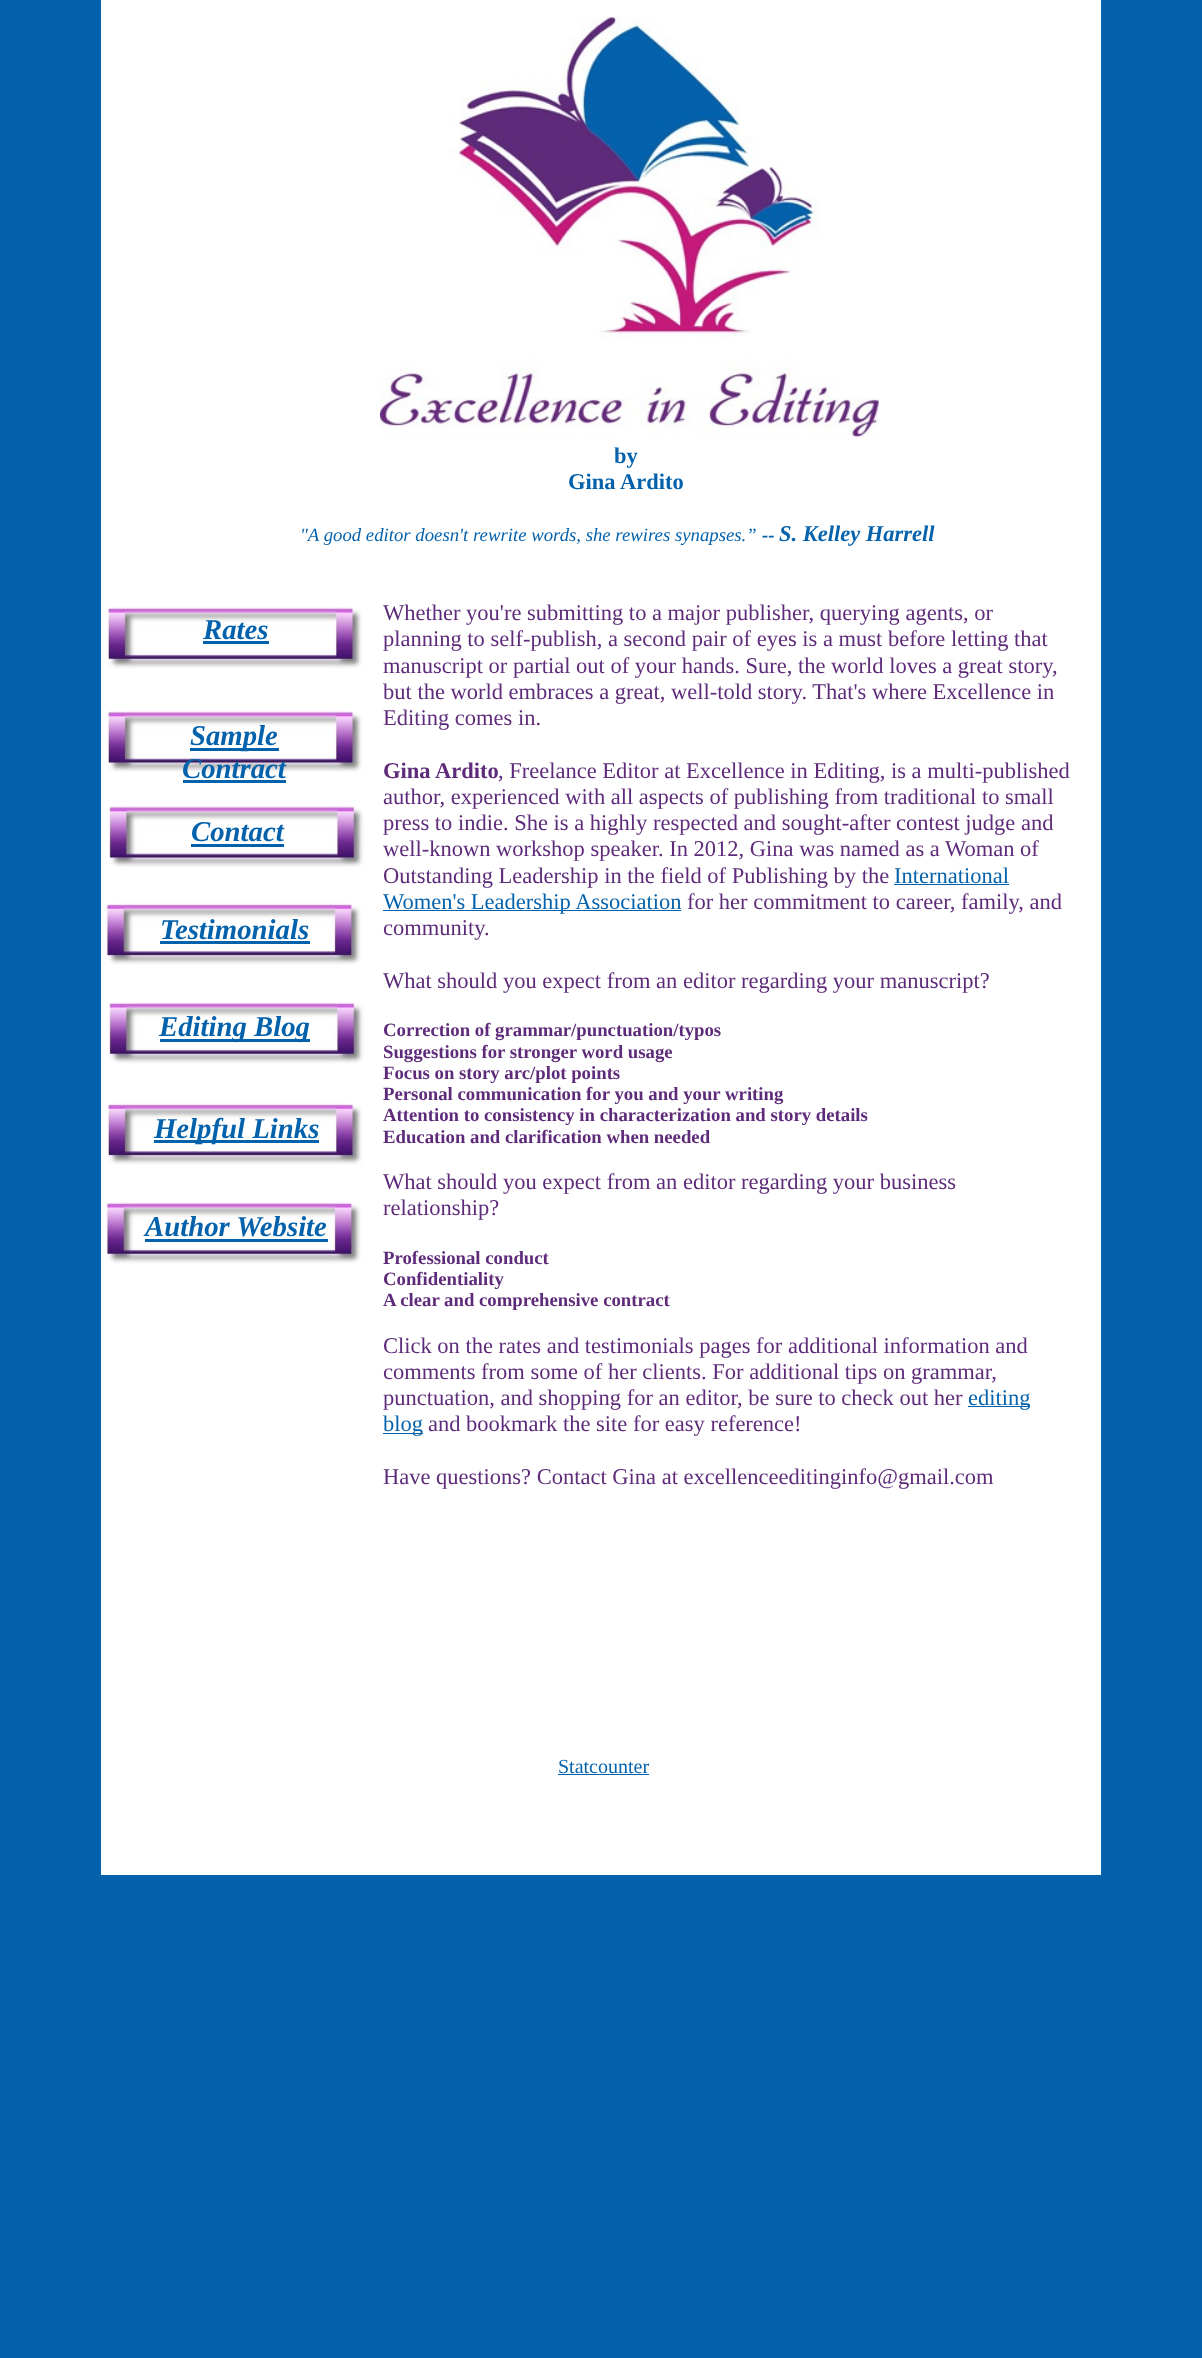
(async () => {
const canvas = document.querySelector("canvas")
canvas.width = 1202
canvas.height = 2358
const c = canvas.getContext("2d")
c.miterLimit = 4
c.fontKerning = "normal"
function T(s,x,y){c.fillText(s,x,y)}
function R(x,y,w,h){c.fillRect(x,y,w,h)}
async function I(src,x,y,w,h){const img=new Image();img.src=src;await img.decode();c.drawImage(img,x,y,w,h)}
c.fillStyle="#0462ac"
R(0,0,1202,2358)
c.fillStyle="#fff"
R(101,0,1000,1875)
await I("1.png",380,17,499,420)
c.font="bold 22.5px Liberation Serif"
c.fillStyle="#0462ac"
T("by",614,463)
T("Gina Ardito",568,489)
c.font="italic 18.75px Liberation Serif"
T("\"A good editor doesn't rewrite words, she rewires synapses.”",300,541)
c.font="italic bold 18.75px Liberation Serif"
T("--",762,541)
c.font="italic bold 22.5px Liberation Serif"
T("S. Kelley Harrell",779,541)
await I("2.png",107,607,256,62)
c.font="22.5px Liberation Serif"
c.fillStyle="#5e2b7a"
T("Whether you're submitting to a major publisher, querying agents, or",383,620)
T("planning to self-publish, a second pair of eyes is a must before letting that",383,646)
T("manuscript or partial out of your hands. Sure, the world loves a great story,",383,673)
T("but the world embraces a great, well-told story. That's where Excellence in",383,699)
T("Editing comes in.",383,725)
c.font="bold 22.5px Liberation Serif"
T("Gina Ardito",383,778)
c.font="22.5px Liberation Serif"
T(", Freelance Editor at Excellence in Editing, is a multi-published",498,778)
T("author, experienced with all aspects of publishing from traditional to small",383,804)
T("press to indie. She is a highly respected and sought-after contest judge and",383,830)
T("well-known workshop speaker. In 2012, Gina was named as a Woman of",383,856)
T("Outstanding Leadership in the field of Publishing by the",383,883)
c.fillStyle="#0462ac"
T("International",894,883)
R(894,884,115,1)
R(383,910,298,1)
T("Women's Leadership Association",383,909)
c.fillStyle="#5e2b7a"
T("for her commitment to career, family, and",687,909)
T("community.",383,935)
T("What should you expect from an editor regarding your manuscript?",383,988)
c.font="bold 18.75px Liberation Serif"
T("Correction of grammar/punctuation/typos",383,1036)
T("Suggestions for stronger word usage",383,1058)
T("Focus on story arc/plot points",383,1079)
T("Personal communication for you and your writing",383,1100)
T("Attention to consistency in characterization and story details",383,1121)
T("Education and clarification when needed",383,1143)
c.font="22.5px Liberation Serif"
T("What should you expect from an editor regarding your business",383,1189)
T("relationship?",383,1215)
c.font="bold 18.75px Liberation Serif"
T("Professional conduct",383,1264)
T("Confidentiality",383,1285)
T("A clear and comprehensive contract",383,1306)
c.font="22.5px Liberation Serif"
T("Click on the rates and testimonials pages for additional information and",383,1353)
T("comments from some of her clients. For additional tips on grammar,",383,1379)
T("punctuation, and shopping for an editor, be sure to check out her",383,1405)
c.fillStyle="#0462ac"
R(968,1406,62,1)
T("editing",968,1405)
R(383,1433,40,1)
T("blog",383,1431)
c.fillStyle="#5e2b7a"
T("and bookmark the site for easy reference!",428,1431)
T("Have questions? Contact Gina at excellenceeditinginfo@gmail.com",383,1484)
c.font="italic bold 28.75px Liberation Serif"
c.fillStyle="#0462ac"
T("Rates",203,639)
R(203,641,66,3)
await I("3.png",107,711,256,61)
R(190,748,89,3)
T("Sample",190,745)
T("Contract",182,778)
R(183,780,103,3)
await I("4.png",108,806,257,61)
T("Contact",191,841)
R(191,844,93,3)
await I("5.png",106,903,256,62)
T("Testimonials",160,939)
R(160,941,150,3)
await I("6.png",108,1002,257,62)
R(160,1039,150,3)
T("Editing Blog",159,1036)
await I("7.png",107,1103,256,62)
R(154,1140,165,3)
T("Helpful Links",154,1138)
await I("8.png",106,1202,256,62)
T("Author Website",145,1236)
R(145,1239,183,3)
c.font="20px Liberation Serif"
T("Statcounter",558,1773)
R(558,1774,91,1)
})()
